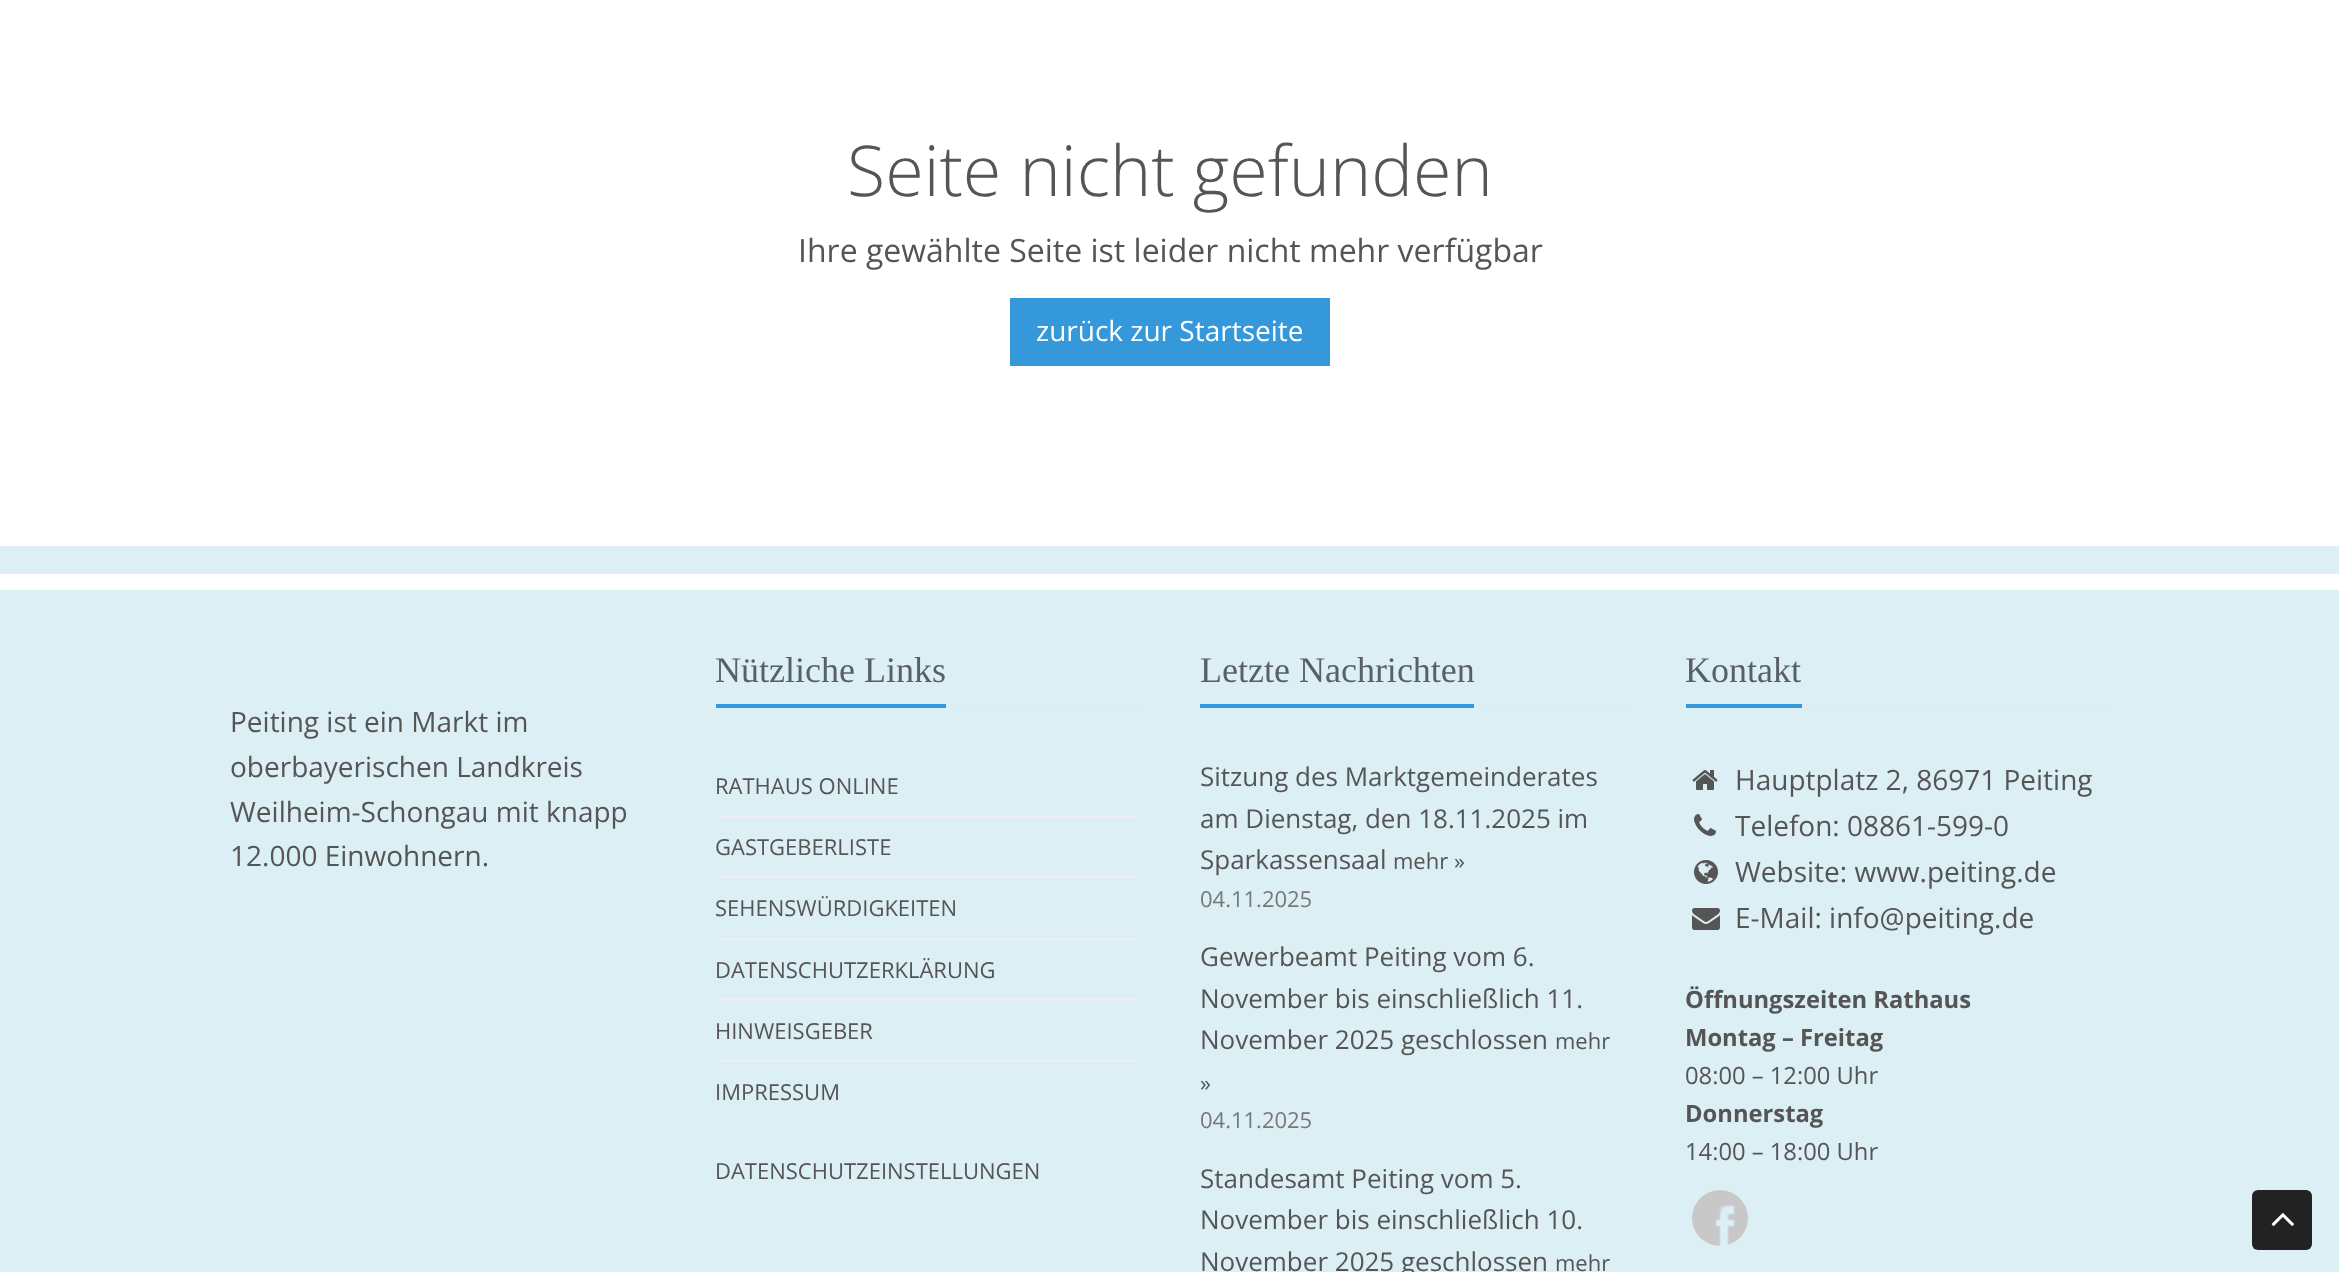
(async () => {
const canvas = document.querySelector("canvas")
canvas.width = 2339
canvas.height = 1272
const c = canvas.getContext("2d")
c.miterLimit = 4
c.fontKerning = "normal"
function T(s,x,y){c.fillText(s,x,y)}
function R(x,y,w,h){c.fillRect(x,y,w,h)}
function Q(x,y,w,h,r){c.beginPath();c.roundRect(x,y,w,h,r);c.fill()}
async function I(src,x,y,w,h){const img=new Image();img.src=src;await img.decode();c.drawImage(img,x,y,w,h)}
let path
c.fillStyle="#fff"
R(0,0,2339,1272)
c.font="300 70px Open Sans"
c.fillStyle="#555"
T("Seite nicht gefunden",847,196)
c.font="32px Open Sans"
T("Ihre gewählte Seite ist leider nicht mehr verfügbar",798,262)
c.fillStyle="#3498db"
R(1010,298,320,68)
c.font="28px Open Sans"
c.fillStyle="#fff"
T("zurück zur Startseite",1036,341)
c.fillStyle="#dceff5"
R(0,546,2339,726)
c.fillStyle="#fff"
R(0,574,2339,16)
c.fillStyle="#555"
T("Peiting ist ein Markt im",230,732)
T("oberbayerischen Landkreis",230,777)
T("Weilheim-Schongau mit knapp",230,822)
T("12.000 Einwohnern.",230,866)
path = new Path2D("M716 705h424")
c.strokeStyle="#e4e9f0"
c.lineWidth=2
c.setLineDash([2,2])
c.stroke(path)
c.fillStyle="#3498db"
R(716,704,230,4)
c.font="36px Liberation Serif"
c.fillStyle="#585f69"
T("Nützliche Links",715,682)
c.font="22px Open Sans"
c.fillStyle="#555"
T("RATHAUS ONLINE",715,794)
c.fillStyle="#eee"
R(716,816,424,2)
c.fillStyle="#555"
T("GASTGEBERLISTE",715,855)
c.fillStyle="#eee"
R(716,876,424,2)
c.fillStyle="#555"
T("SEHENSWÜRDIGKEITEN",715,916)
c.fillStyle="#eee"
R(716,938,424,2)
c.fillStyle="#555"
T("DATENSCHUTZERKLÄRUNG",715,978)
c.fillStyle="#eee"
R(716,998,424,2)
c.fillStyle="#555"
T("HINWEISGEBER",715,1039)
c.fillStyle="#eee"
R(716,1060,424,2)
c.fillStyle="#555"
T("IMPRESSUM",715,1100)
T("DATENSCHUTZEINSTELLUNGEN",715,1179)
path = new Path2D("M1200 705h426")
c.stroke(path)
c.fillStyle="#3498db"
R(1200,704,274,4)
c.font="36px Liberation Serif"
c.fillStyle="#585f69"
T("Letzte Nachrichten",1200,682)
c.font="26px Open Sans"
c.fillStyle="#555"
T("Sitzung des Marktgemeinderates",1200,786)
T("am Dienstag, den 18.11.2025 im",1200,828)
T("Sparkassensaal",1200,869)
c.font="22px Open Sans"
T("mehr »",1393,869)
c.fillStyle="#777"
T("04.11.2025",1200,907)
c.font="26px Open Sans"
c.fillStyle="#555"
T("Gewerbeamt Peiting vom 6.",1200,966)
T("November bis einschließlich 11.",1200,1008)
T("November 2025 geschlossen",1200,1049)
c.font="22px Open Sans"
T("mehr",1555,1049)
T("»",1200,1091)
c.fillStyle="#777"
T("04.11.2025",1200,1128)
c.font="26px Open Sans"
c.fillStyle="#555"
T("Standesamt Peiting vom 5.",1200,1188)
T("November bis einschließlich 10.",1200,1229)
T("November 2025 geschlossen",1200,1271)
c.font="22px Open Sans"
T("mehr",1555,1271)
path = new Path2D("M1686 705h424")
c.stroke(path)
c.fillStyle="#3498db"
R(1686,704,116,4)
c.font="36px Liberation Serif"
c.fillStyle="#585f69"
T("Kontakt",1685,682)
await I("1.png",1692,770,26,20)
c.font="28px Open Sans"
c.fillStyle="#555"
T("Hauptplatz 2, 86971 Peiting",1735,790)
await I("2.png",1694,814,22,22)
T("Telefon: 08861-599-0",1735,836)
await I("3.png",1694,860,24,24)
T("Website: www.peiting.de",1735,882)
await I("4.png",1692,908,28,22)
T("E-Mail: info@peiting.de",1735,928)
c.font="bold 23.75px Open Sans"
T("Öffnungszeiten Rathaus",1685,1008)
T("Montag – Freitag",1685,1046)
c.font="23.75px Open Sans"
T("08:00 – 12:00 Uhr",1685,1084)
c.font="bold 23.75px Open Sans"
T("Donnerstag",1685,1122)
c.font="23.75px Open Sans"
T("14:00 – 18:00 Uhr",1685,1160)
await I("5.png",1692,1190,56,56)
c.fillStyle="#222"
Q(2252,1190,60,60,6)
await I("6.png",2271,1213,23,13)
})()
